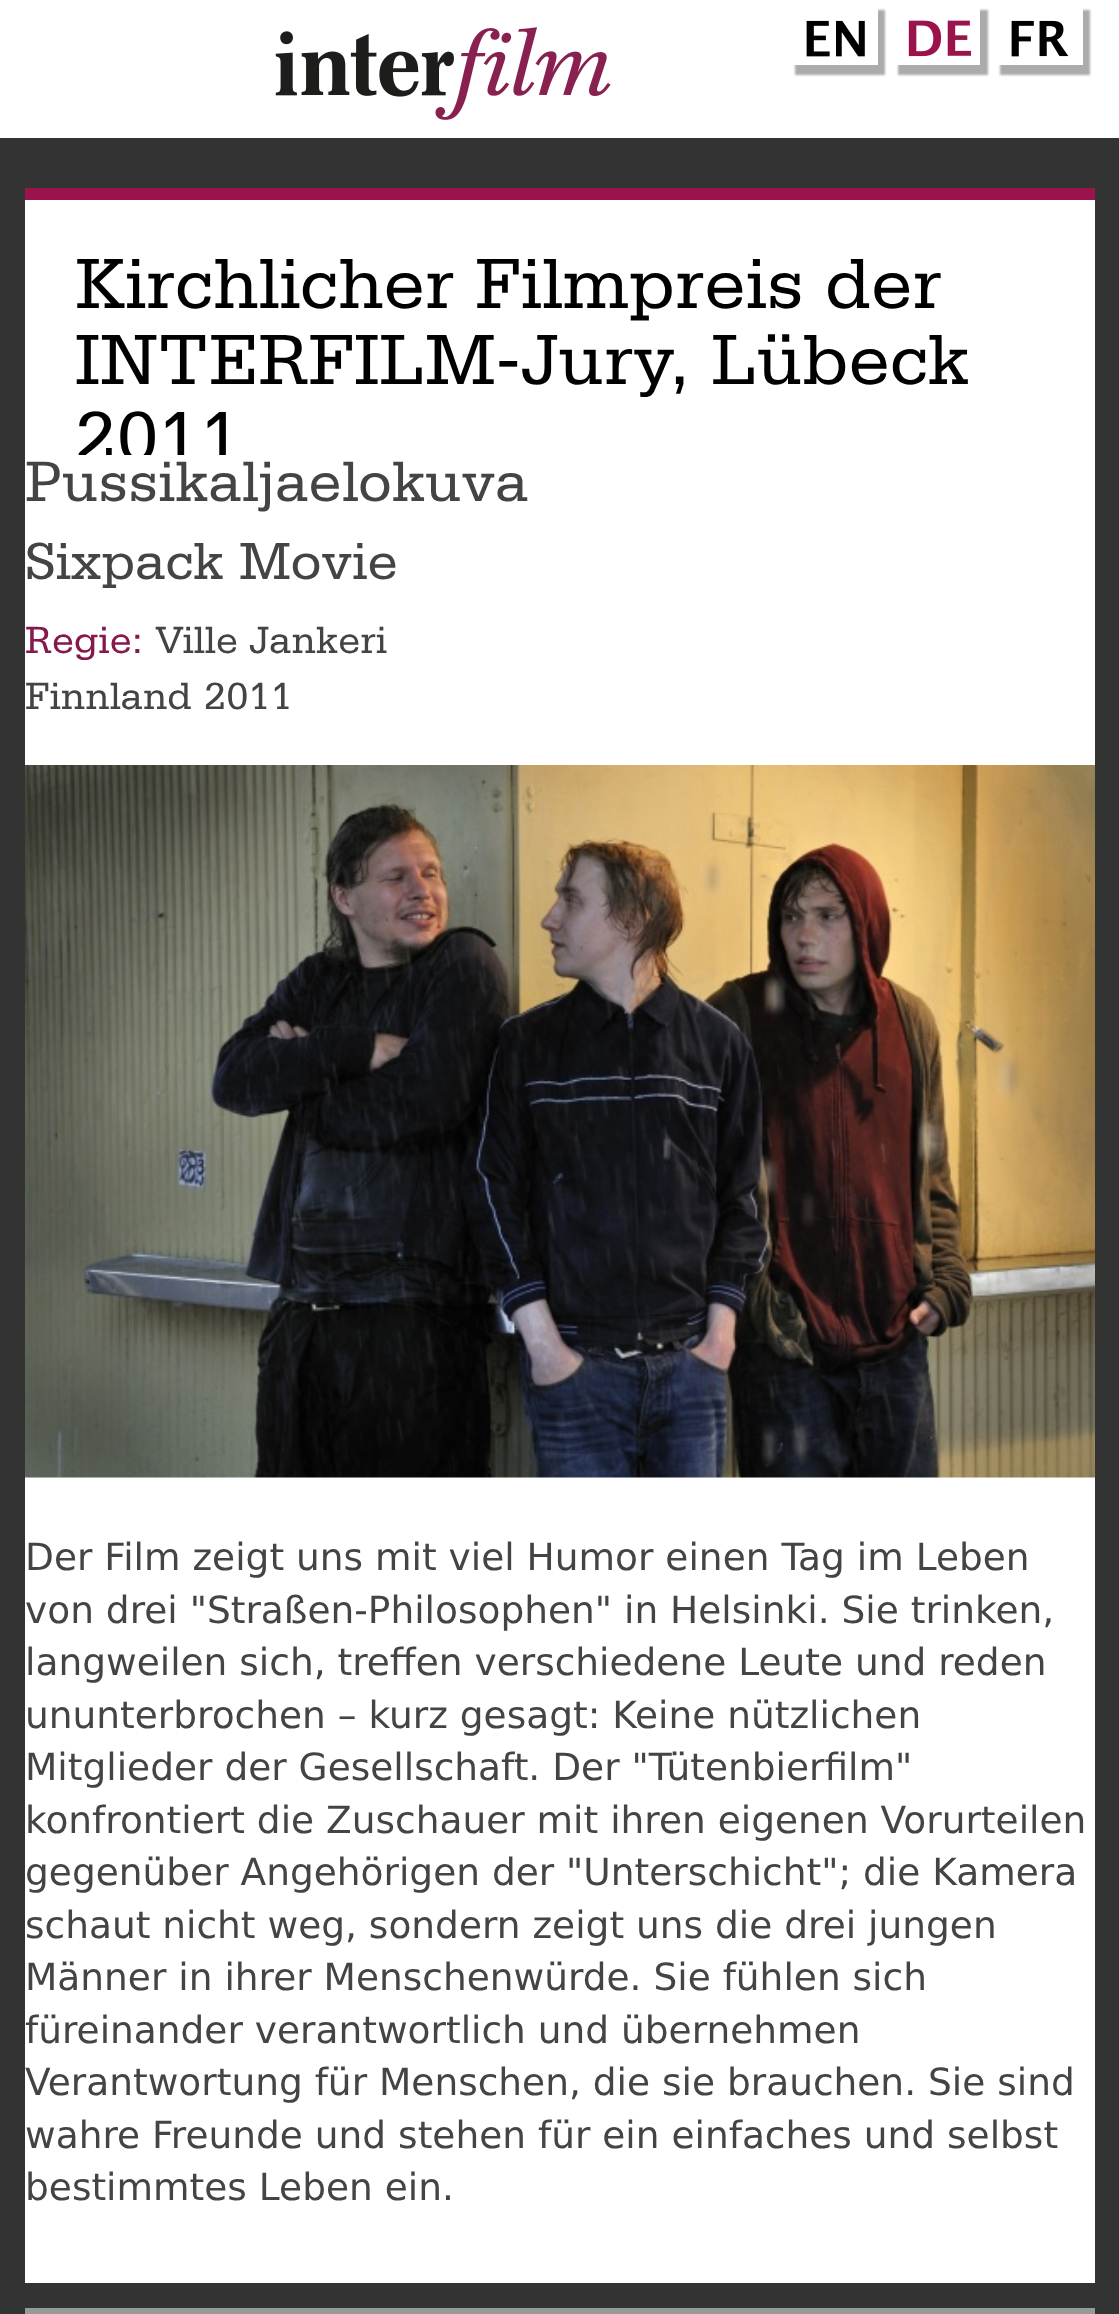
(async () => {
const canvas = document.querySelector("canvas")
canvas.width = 1119
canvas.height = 2314
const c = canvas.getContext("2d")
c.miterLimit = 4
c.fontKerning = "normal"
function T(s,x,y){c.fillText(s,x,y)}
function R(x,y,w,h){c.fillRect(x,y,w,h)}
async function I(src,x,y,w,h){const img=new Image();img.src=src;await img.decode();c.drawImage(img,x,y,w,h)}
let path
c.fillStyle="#333"
R(0,0,1119,2314)
c.fillStyle="#fff"
R(0,0,1119,138)
await I("1.png",275,27,336,93)
c.save()
path = new Path2D("M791 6h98v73h-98zm-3-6h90v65h-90z")
c.clip(path,"evenodd")
c.fillStyle="#ababab"
c.filter="blur(1px)"
c.beginPath()
c.rect(795,10,90,65)
c.fill()
c.filter="none"
c.restore()
await I("2.png",806,20,59,37)
c.save()
path = new Path2D("M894 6h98v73h-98zm-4-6h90v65h-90z")
c.clip(path,"evenodd")
c.fillStyle="#ababab"
c.filter="blur(1px)"
c.beginPath()
c.rect(898,10,90,65)
c.fill()
c.filter="none"
c.restore()
await I("3.png",908,20,64,37)
c.save()
path = new Path2D("M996 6h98v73h-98zm-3-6h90v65h-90z")
c.clip(path,"evenodd")
c.fillStyle="#ababab"
c.filter="blur(1px)"
c.beginPath()
c.rect(1000,10,90,65)
c.fill()
c.filter="none"
c.restore()
await I("4.png",1011,20,58,37)
R(25,200,1070,255)
c.fillStyle="#9b134b"
R(25,188,1070,12)
c.font="75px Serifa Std"
c.fillStyle="#000"
T("Kirchlicher Filmpreis der",75,308)
T("INTERFILM-Jury, Lübeck",75,384)
T("2011",75,461)
c.fillStyle="#fff"
R(25,455,1070,1828)
c.font="60px Serifa Std"
c.fillStyle="#444"
T("Pussikaljaelokuva",25,501)
c.font="55px Serifa Std"
T("Sixpack Movie",25,579)
c.font="40px Serifa Std"
c.fillStyle="#85194c"
T("Regie:",25,653)
c.fillStyle="#444"
T("Ville Jankeri",155,653)
T("Finnland",25,709)
T("2011",204,709)
await I("5.png",25,765,1070,713)
c.font="37.5px DejaVu Sans"
T("Der Film zeigt uns mit viel Humor einen Tag im Leben",25,1570)
T("von drei \"Straßen-Philosophen\" in Helsinki. Sie trinken,",25,1623)
T("langweilen sich, treffen verschiedene Leute und reden",25,1675)
T("ununterbrochen – kurz gesagt: Keine nützlichen",25,1728)
T("Mitglieder der Gesellschaft. Der \"Tütenbierfilm\"",25,1780)
T("konfrontiert die Zuschauer mit ihren eigenen Vorurteilen",25,1833)
T("gegenüber Angehörigen der \"Unterschicht\"; die Kamera",25,1885)
T("schaut nicht weg, sondern zeigt uns die drei jungen",25,1938)
T("Männer in ihrer Menschenwürde. Sie fühlen sich",25,1990)
T("füreinander verantwortlich und übernehmen",25,2043)
T("Verantwortung für Menschen, die sie brauchen. Sie sind",25,2095)
T("wahre Freunde und stehen für ein einfaches und selbst",25,2148)
T("bestimmtes Leben ein.",25,2200)
c.strokeStyle="#999"
c.lineWidth=8
c.strokeRect(29,2312,1062,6)
})()
